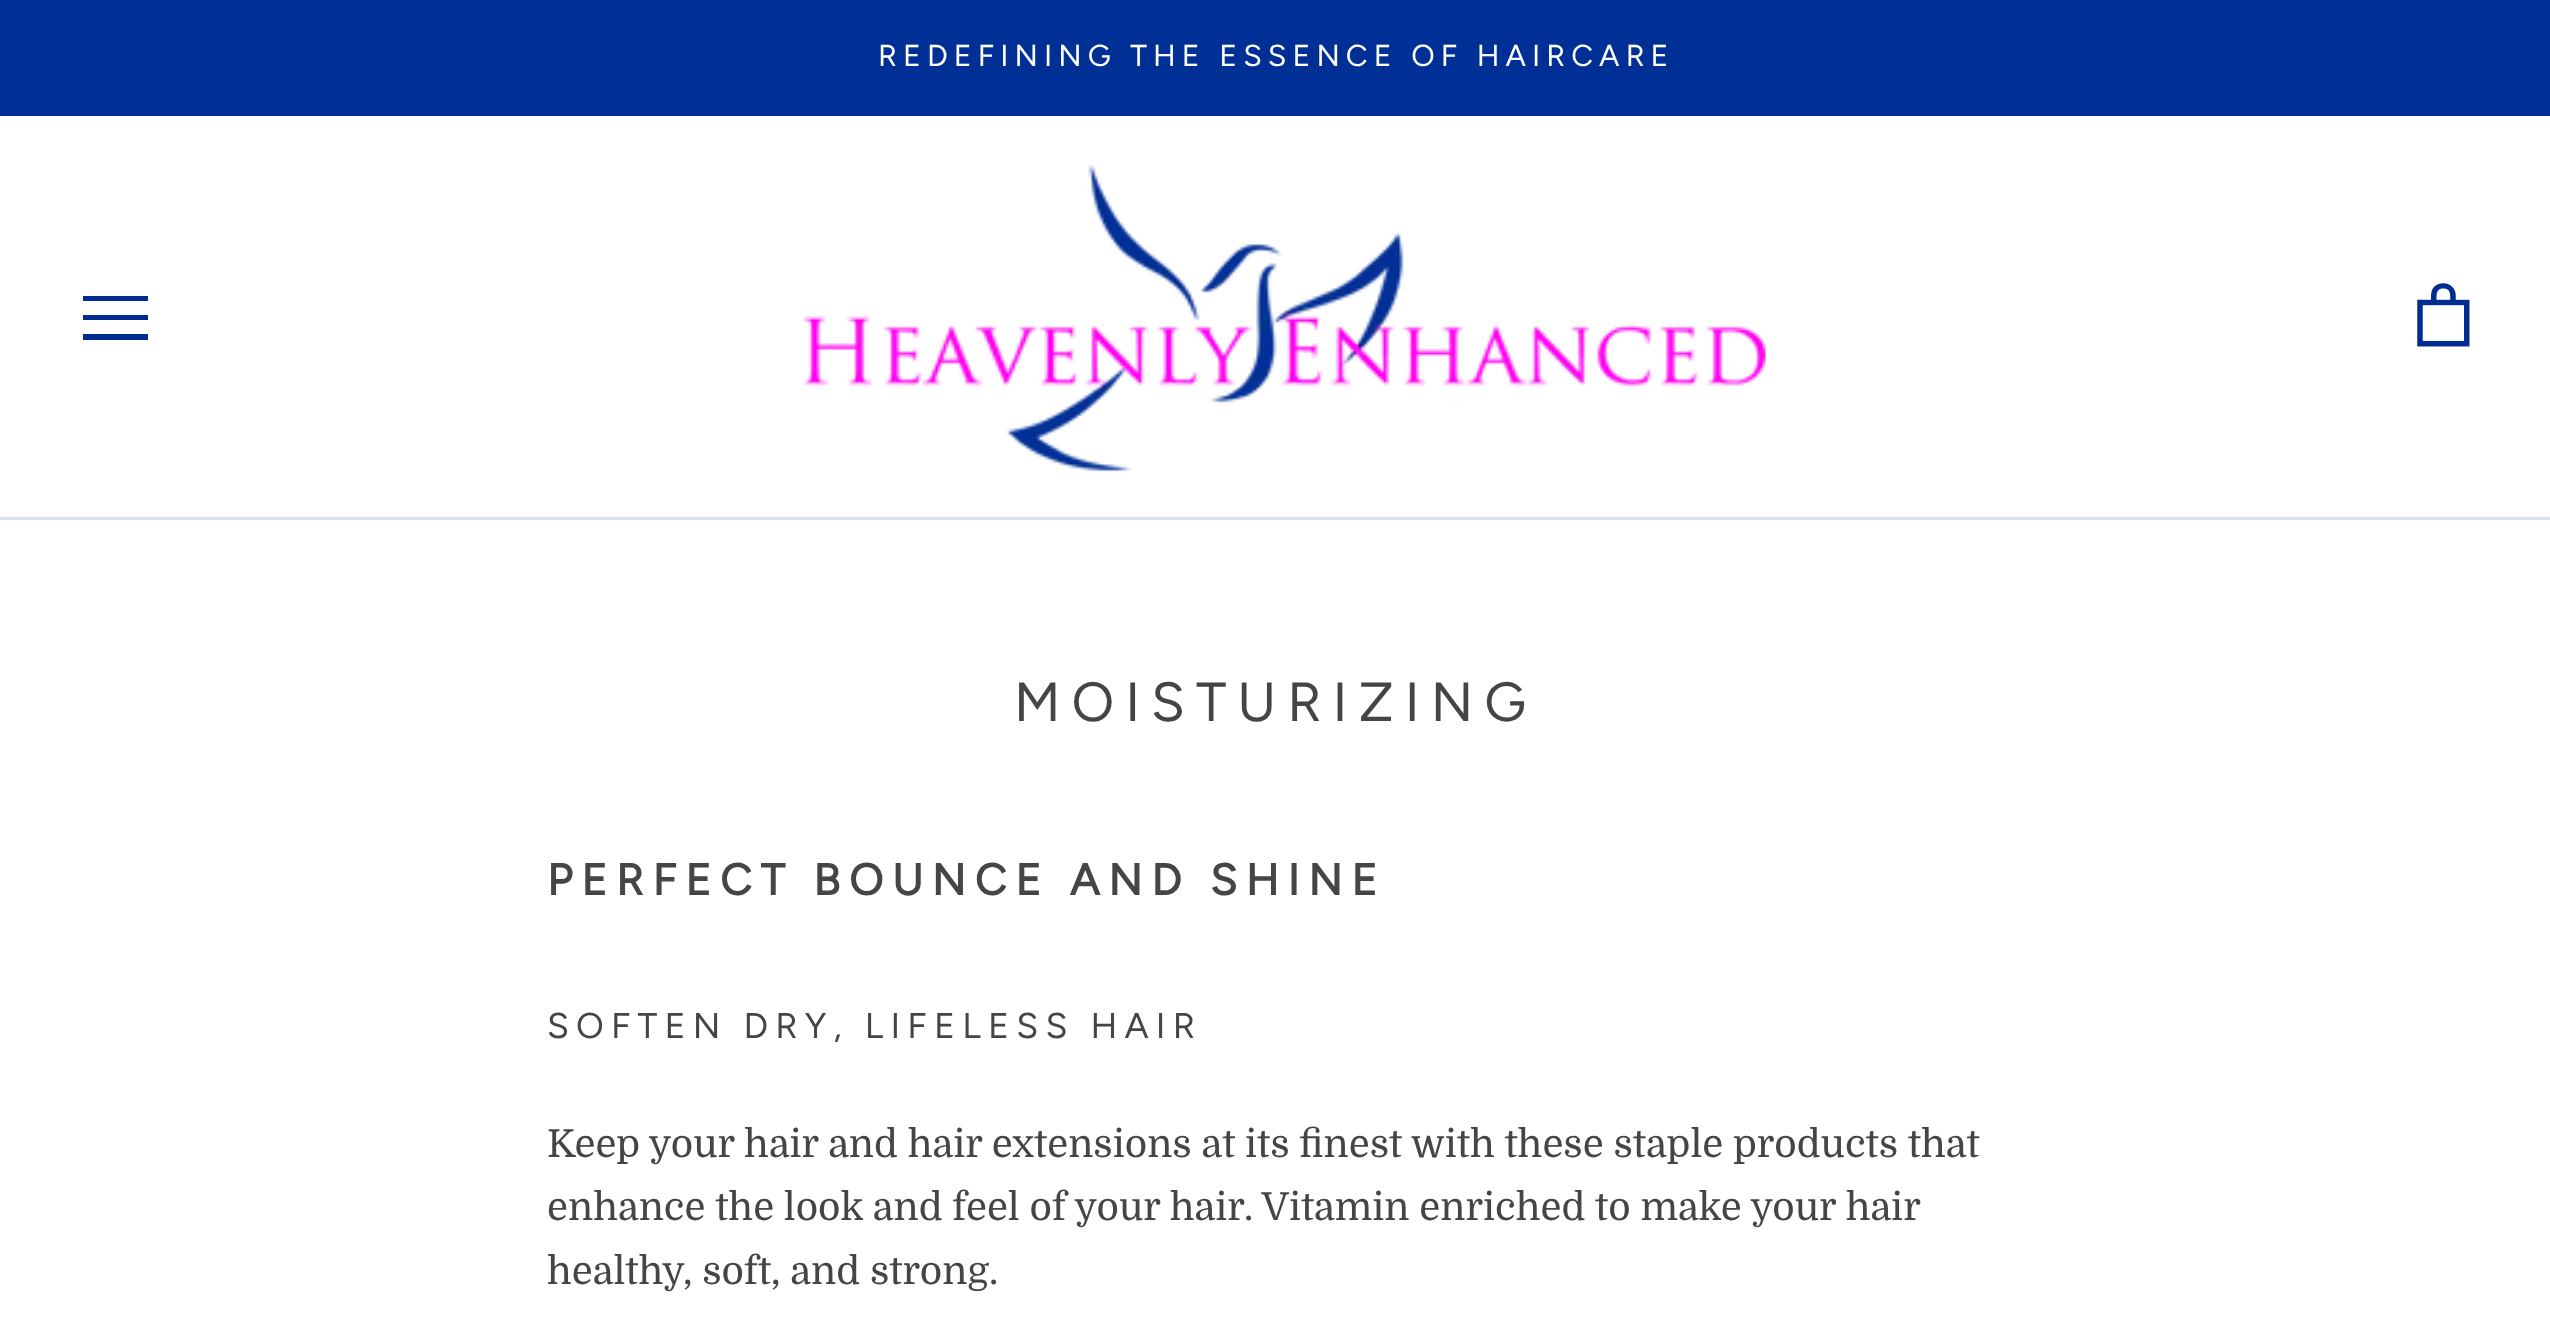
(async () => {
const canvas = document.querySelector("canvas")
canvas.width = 2550
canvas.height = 1333
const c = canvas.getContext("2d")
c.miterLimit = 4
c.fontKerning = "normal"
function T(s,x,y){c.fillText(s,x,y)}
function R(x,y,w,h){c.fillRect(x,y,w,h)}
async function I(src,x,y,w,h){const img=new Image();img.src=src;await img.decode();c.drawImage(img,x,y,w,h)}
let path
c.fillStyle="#fff"
R(0,0,2550,1333)
c.fillStyle="#003096"
R(0,0,2550,116)
c.letterSpacing="6.05px"
c.font="30.25px Figtree"
c.fillStyle="#fff"
T("REDEFINING THE ESSENCE OF HAIRCARE",878,66)
c.fillStyle="#d9e0ee"
R(0,517,2550,3)
c.save()
c.beginPath()
c.rect(83,294,66,47)
c.clip()
c.fillStyle="#002d8f"
path = new Path2D("M82 340v-6h66v6zm0-25h66v5h-66zm0-19h66v5h-66z")
c.fill(path)
c.restore()
await I("1.png",802,165,964,307)
await I("2.png",2417,283,53,64)
c.letterSpacing="11px"
c.font="55px Figtree"
c.fillStyle="#454545"
T("MOISTURIZING",1014,721)
c.letterSpacing="8.8px"
c.font="bold 44px Figtree"
T("PERFECT BOUNCE AND SHINE",547,895)
c.letterSpacing="7.15px"
c.font="35.75px Figtree"
T("SOFTEN DRY, LIFELESS HAIR",547,1038)
c.letterSpacing="0px"
c.font="38.5px Domine"
T("Keep your hair and hair extensions at its finest with these staple products that",547,1157)
T("enhance the look and feel of your hair. Vitamin enriched to make your hair",547,1220)
T("healthy, soft, and strong.",547,1284)
})()
